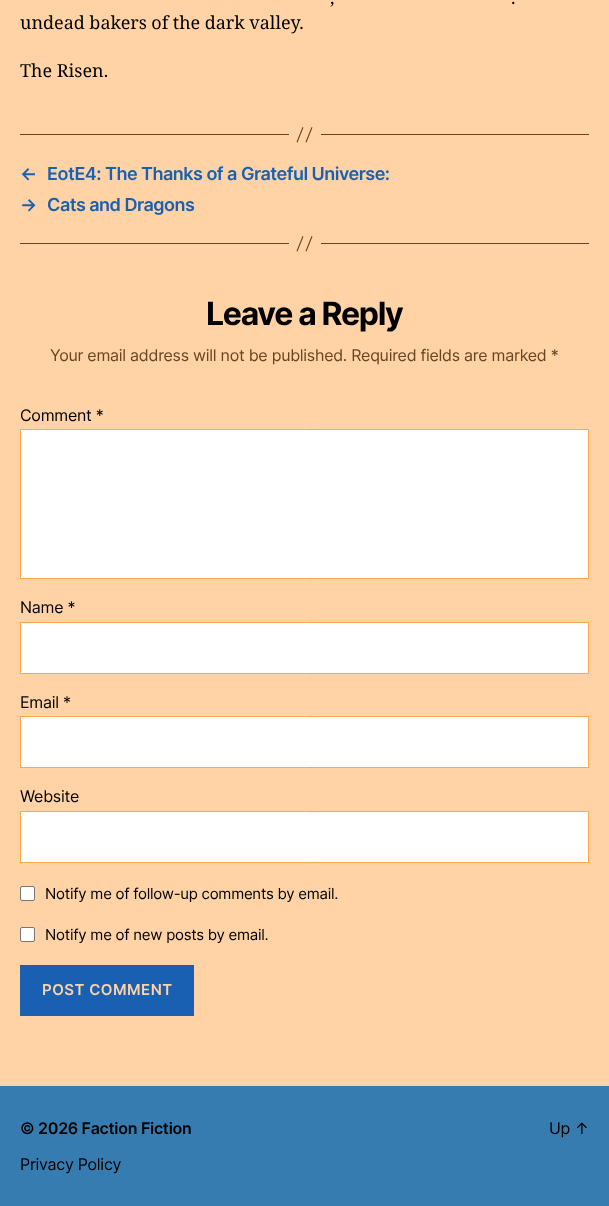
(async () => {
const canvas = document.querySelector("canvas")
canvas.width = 609
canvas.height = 1206
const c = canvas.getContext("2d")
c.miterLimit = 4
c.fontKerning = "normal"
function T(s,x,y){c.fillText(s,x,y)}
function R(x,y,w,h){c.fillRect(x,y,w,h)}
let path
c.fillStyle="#ffd3a5"
R(0,0,609,1206)
c.wordSpacing="-0.25px"
c.font="18px Noto Serif"
c.fillStyle="#000"
T(",",330,4)
T(".",511,4)
T("undead bakers of the dark valley.",20,29)
c.wordSpacing="0px"
T("The Risen.",20,77)
c.fillStyle="#674522"
R(321,134,268,1)
R(20,134,269,1)
path = new Path2D("M302.5 127l1 .5l-6 15l-1-.5zm9 0l1 .5l-6 15l-1-.5z")
c.fill(path)
c.letterSpacing="-0.5px"
c.font="600 18px Inter"
c.fillStyle="#1960b2"
T("←",20,180)
T("EotE4: The Thanks of a Grateful Universe:",47,180)
T("→",20,211)
T("Cats and Dragons",47,211)
c.fillStyle="#674522"
R(321,243,268,1)
R(20,243,269,1)
path = new Path2D("M302.5 236l1 .5l-6 15l-1-.5zm9 0l1 .5l-6 15l-1-.5z")
c.fill(path)
c.letterSpacing="-1.3px"
c.font="bold 32px Inter"
c.fillStyle="#000"
T("Leave a Reply",206,325)
c.letterSpacing="-0.27px"
c.font="16px Inter"
c.fillStyle="#674522"
T("Your email address will not be published. Required fields are marked *",50,361)
c.fillStyle="#000"
T("Comment *",20,421)
c.fillStyle="#fff"
c.beginPath()
c.rect(20.5,429.5,568,149)
c.fill()
c.strokeStyle="#fea84d"
c.stroke()
c.fillStyle="#000"
T("Name *",20,613)
c.fillStyle="#fff"
c.beginPath()
c.rect(20.5,622.5,568,51)
c.fill()
c.stroke()
c.fillStyle="#000"
T("Email *",20,708)
c.fillStyle="#fff"
c.beginPath()
c.rect(20.5,716.5,568,51)
c.fill()
c.stroke()
c.fillStyle="#000"
T("Website",20,802)
c.fillStyle="#fff"
c.beginPath()
c.rect(20.5,811.5,568,51)
c.fill()
c.stroke()
c.beginPath()
c.roundRect(20.5,886.5,14,14,1.5)
c.fill()
c.strokeStyle="#767676"
c.stroke()
c.font="15px Inter"
c.fillStyle="#000"
T("Notify me of follow-up comments by email.",45,899)
c.fillStyle="#fff"
c.beginPath()
c.roundRect(20.5,927.5,14,14,1.5)
c.fill()
c.stroke()
c.fillStyle="#000"
T("Notify me of new posts by email.",45,940)
c.fillStyle="#1960b2"
R(20,965,174,51)
c.letterSpacing="0.5px"
c.font="600 15px Inter"
c.fillStyle="#ffd3a5"
T("POST COMMENT",42,995)
c.fillStyle="#367cb1"
R(0,1086,609,120)
c.letterSpacing="-0.27px"
c.font="600 16px Inter"
c.fillStyle="#000"
T("© 2026 Faction Fiction",20,1134)
c.font="16px Inter"
T("Privacy Policy",20,1170)
T("Up ↑",549,1134)
})()
